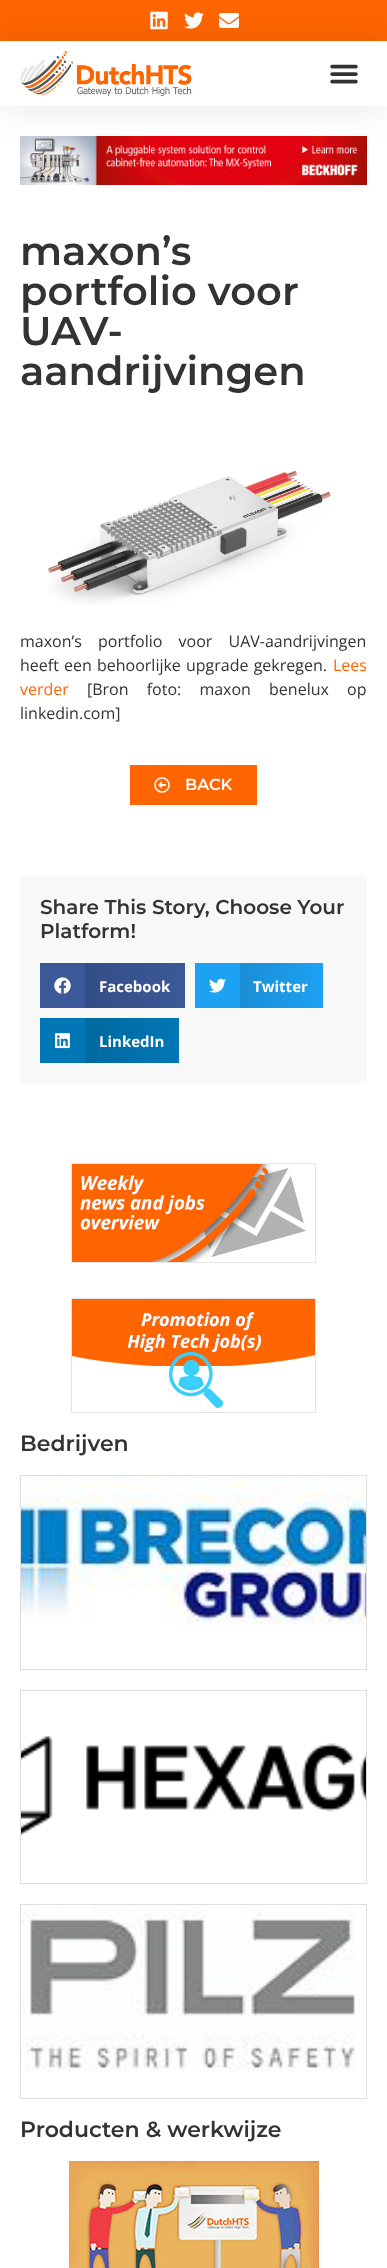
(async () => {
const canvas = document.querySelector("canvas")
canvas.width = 387
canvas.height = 2268
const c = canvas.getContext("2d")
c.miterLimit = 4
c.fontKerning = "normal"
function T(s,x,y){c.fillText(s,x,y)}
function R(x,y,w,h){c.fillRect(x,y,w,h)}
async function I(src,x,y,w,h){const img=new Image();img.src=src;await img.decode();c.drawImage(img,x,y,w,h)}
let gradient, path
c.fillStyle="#fff"
R(0,0,387,2268)
c.fillStyle="#ff6501"
R(0,0,387,41)
await I("1.png",150,11,18,19)
await I("2.png",184,12,20,17)
await I("3.png",219,13,20,15)
c.save()
path = new Path2D("M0 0h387v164h-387zm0 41h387v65h-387z")
c.clip(path,"evenodd")
c.fillStyle="#0000001a"
c.filter="blur(19px)"
c.beginPath()
c.rect(0,41,387,65)
c.fill()
c.filter="none"
c.restore()
await I("4.png",20,51,174,45)
await I("5.png",330,64,28,20)
await I("6.png",20,136,347,49)
c.font="600 40px Montserrat"
c.fillStyle="#333"
T("maxon’s",20,265)
T("portfolio voor",20,305)
T("UAV-",20,345)
T("aandrijvingen",20,385)
await I("7.png",48,468,284,137)
c.wordSpacing="12px"
c.font="16px Open Sans"
T("maxon’s portfolio voor UAV-aandrijvingen",20,647)
c.wordSpacing="1px"
T("heeft een behoorlijke upgrade gekregen.",20,671)
c.wordSpacing="0px"
c.fillStyle="#ff6501"
T("Lees",333,671)
T("verder",20,695)
c.wordSpacing="14px"
c.fillStyle="#333"
T("[Bron foto: maxon benelux op",87,695)
c.wordSpacing="0px"
T("linkedin.com]",20,719)
c.fillStyle="#ff6501"
R(130,765,127,40)
await I("8.png",154,777,16,16)
c.font="600 16px Montserrat"
c.fillStyle="#fff"
T("BACK",185,790)
c.fillStyle="#f8f8f8"
R(20,875,347,208)
c.font="600 20px Montserrat"
c.fillStyle="#333"
T("Share This Story, Choose Your",40,914)
T("Platform!",40,938)
c.fillStyle="#3b5998"
R(40,963,45,45)
await I("9.png",54,977,17,17)
gradient = c.createLinearGradient(85,986,185,986)
gradient.addColorStop(0,"#344e86")
gradient.addColorStop(1,"#3b5998")
c.fillStyle = gradient
R(85,963,100,45)
c.font="bold 15px Open Sans"
c.fillStyle="#fff"
T("Facebook",99,992)
c.fillStyle="#1da1f2"
R(195,963,45,45)
await I("10.png",209,978,17,15)
gradient = c.createLinearGradient(240,986,323,986)
gradient.addColorStop(0,"#1a8ed5")
gradient.addColorStop(1,"#1da1f2")
c.fillStyle = gradient
R(240,963,83,45)
c.fillStyle="#fff"
T("Twitter",253,992)
c.fillStyle="#0077b5"
R(40,1018,45,45)
await I("11.png",55,1033,15,16)
gradient = c.createLinearGradient(85,1041,179,1041)
gradient.addColorStop(0,"#00699f")
gradient.addColorStop(1,"#0077b5")
c.fillStyle = gradient
R(85,1018,94,45)
c.fillStyle="#fff"
T("LinkedIn",99,1047)
await I("12.png",71,1163,245,100)
await I("13.png",71,1298,245,115)
c.font="600 22px Montserrat"
c.fillStyle="#333"
T("Bedrijven",20,1451)
c.strokeStyle="#dedede"
c.strokeRect(20.5,1475.5,346,194)
await I("14.png",21,1476,345,150)
c.strokeRect(20.5,1690.5,346,193)
await I("15.png",21,1736,345,100)
c.strokeRect(20.5,1904.5,346,194)
await I("16.png",21,1905,334,167)
T("Producten & werkwijze",20,2137)
await I("17.png",69,2161,250,107)
})()
